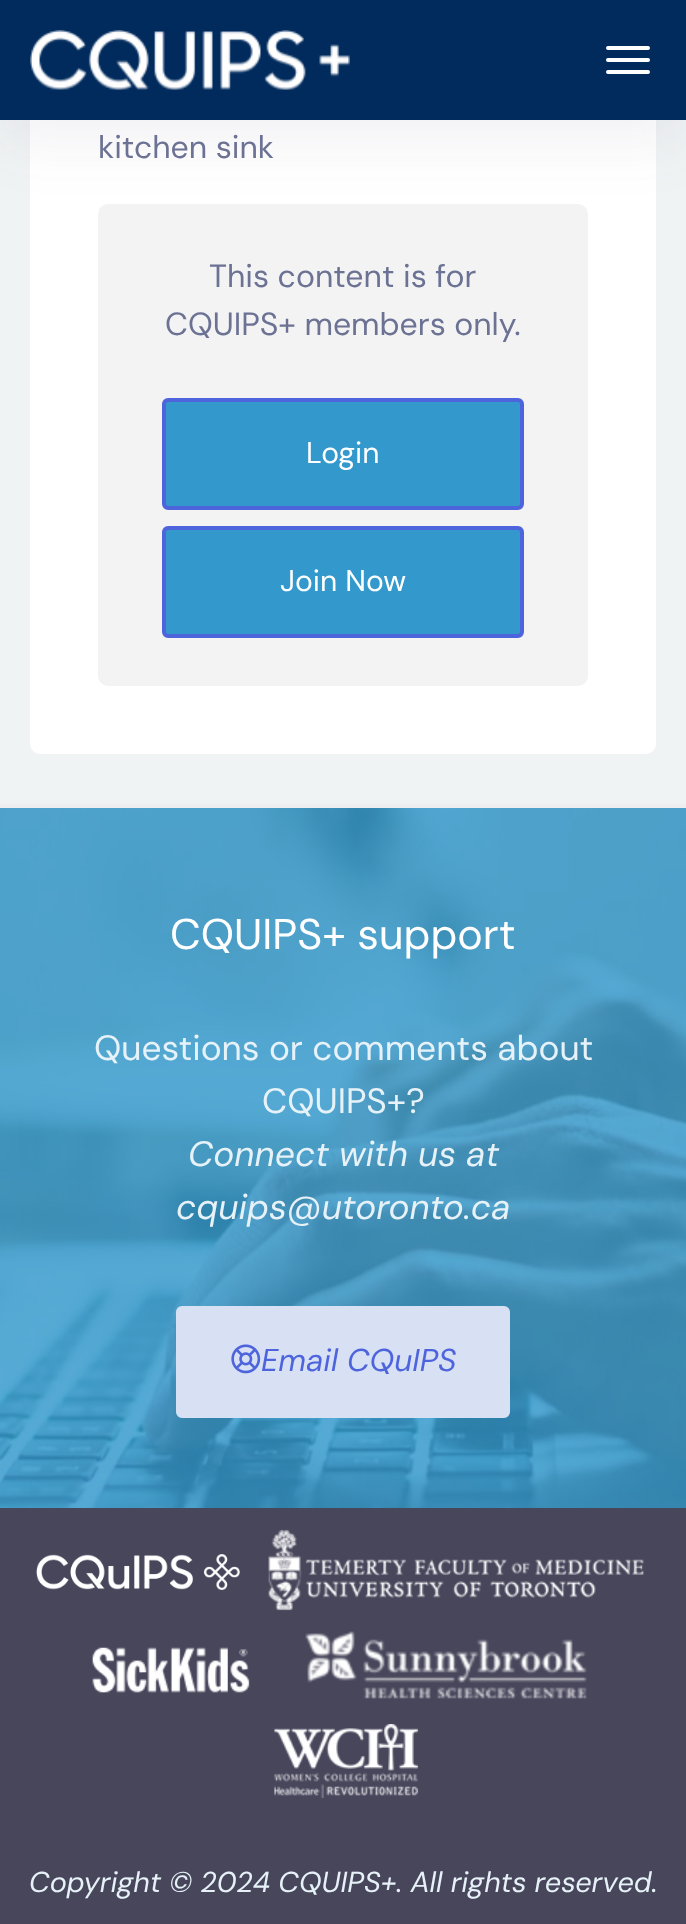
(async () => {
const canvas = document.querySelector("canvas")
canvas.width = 686
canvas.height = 1924
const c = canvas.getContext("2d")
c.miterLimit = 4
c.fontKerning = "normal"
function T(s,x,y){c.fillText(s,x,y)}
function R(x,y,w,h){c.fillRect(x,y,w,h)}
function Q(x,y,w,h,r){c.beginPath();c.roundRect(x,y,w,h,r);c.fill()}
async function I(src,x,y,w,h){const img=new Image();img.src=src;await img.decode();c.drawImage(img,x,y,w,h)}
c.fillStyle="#f0f3f4"
R(0,0,686,1924)
c.fillStyle="#fff"
Q(30,-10,626,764,10)
c.fillStyle="#f3f3f4"
Q(98,204,490,482,10)
c.fillStyle="#523f6914"
c.filter="blur(30px)"
c.beginPath()
c.rect(0,20,686,120)
c.fill()
c.filter="none"
c.fillStyle="#012b5d"
R(0,0,686,120)
await I("1.png",30,30,320,60)
c.fillStyle="#fff"
Q(606,58,44,4,2)
Q(606,46,44,4,2)
Q(606,70,44,4,2)
c.font="32px DM Sans"
c.fillStyle="#6c7293"
T("kitchen sink",98,158)
T("This content is for",209,287)
T("CQUIPS+ members only.",165,335)
c.fillStyle="#39c"
c.beginPath()
c.roundRect(164,400,358,108,4)
c.fill()
c.strokeStyle="#4e64dd"
c.lineWidth=4
c.stroke()
c.font="30px DM Sans"
c.fillStyle="#fff"
T("Login",306,463)
c.fillStyle="#39c"
c.beginPath()
c.roundRect(164,528,358,108,4)
c.fill()
c.stroke()
c.fillStyle="#fff"
T("Join Now",280,591)
await I("2.png",0,808,686,700)
c.fillStyle="#eceeef"
R(0,804,686,4)
c.font="43px DM Sans"
c.fillStyle="#fff"
T("CQUIPS+ support",170,949)
c.font="35.25px DM Sans"
c.fillStyle="#e6f2f8"
T("Questions or comments about",94,1060)
T("CQUIPS+?",262,1113)
c.font="italic 35.25px DM Sans"
T("Connect with us at",188,1166)
T("cquips@utoronto.ca",176,1219)
c.fillStyle="#d8e1f3"
c.beginPath()
c.roundRect(178,1308,330,108,4)
c.fill()
c.strokeStyle="#d8e1f3"
c.stroke()
await I("3.png",231,1344,30,30)
c.font="italic 31.5px DM Sans"
c.fillStyle="#4e64dd"
T("Email CQuIPS",261,1371)
c.fillStyle="#48465b"
R(0,1508,686,416)
await I("4.png",36,1554,204,36)
await I("5.png",268,1529,376,82)
await I("6.png",92,1647,158,46)
await I("7.png",305,1631,282,68)
await I("8.png",274,1724,145,74)
c.font="italic 28.8px DM Sans"
c.fillStyle="#e6f2f8"
T("Copyright © 2024 CQUIPS+. All rights reserved.",29,1892)
})()
